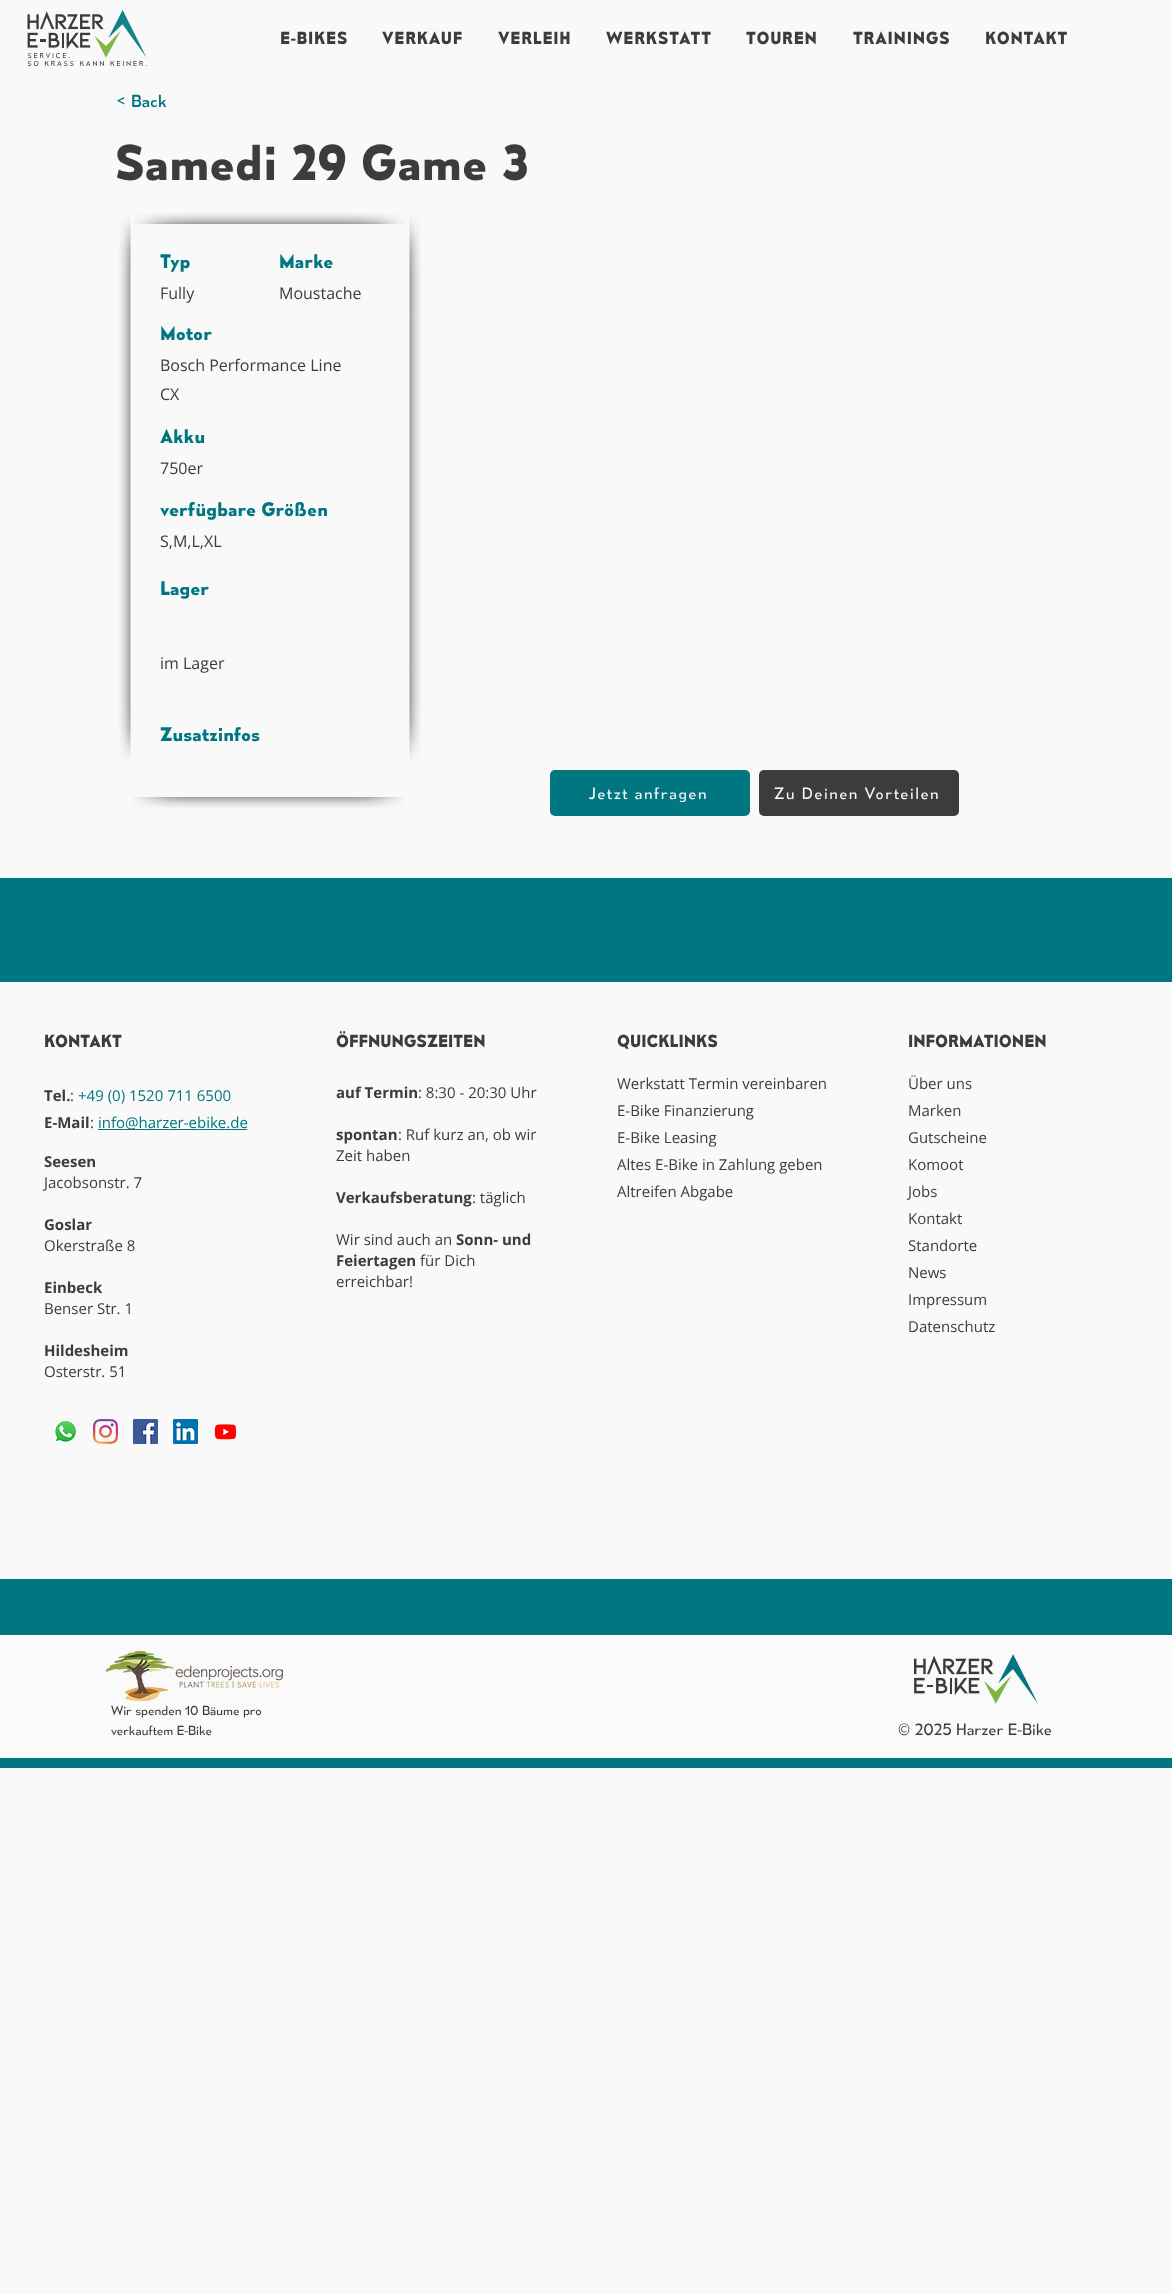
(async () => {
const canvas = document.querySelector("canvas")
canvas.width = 1172
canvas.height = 2294
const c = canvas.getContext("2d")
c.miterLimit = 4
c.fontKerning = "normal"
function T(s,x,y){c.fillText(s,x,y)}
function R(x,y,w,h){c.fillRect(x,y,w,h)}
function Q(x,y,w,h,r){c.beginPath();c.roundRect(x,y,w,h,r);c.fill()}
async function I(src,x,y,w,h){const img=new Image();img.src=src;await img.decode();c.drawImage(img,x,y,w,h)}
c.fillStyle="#f9f9f9"
R(0,0,1172,2294)
await I("1.png",27,10,120,56)
c.letterSpacing="0.75px"
c.font="bold 16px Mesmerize"
c.fillStyle="#3c3c3b"
T("E-BIKES",280,44)
T("VERKAUF",382,44)
T("VERLEIH",498,44)
T("WERKSTATT",606,44)
T("TOUREN",746,44)
T("TRAININGS",853,44)
T("KONTAKT",985,44)
c.letterSpacing="0px"
c.font="16px Mesmerize"
c.fillStyle="#007681"
T("< Back",115,107)
c.font="bold 46px Mesmerize"
c.fillStyle="#3c3c3b"
T("Samedi 29 Game 3",115,180)
await I("3.png",119,312,12,353)
await I("2.png",119,216,12,97)
await I("4.png",119,664,12,97)
await I("5.png",133,213,97,11)
await I("6.png",230,213,78,11)
await I("7.png",308,213,97,11)
await I("9.png",409,312,12,353)
await I("8.png",409,216,12,97)
await I("10.png",409,664,12,97)
c.font="bold 18px Mesmerize"
c.fillStyle="#007681"
T("Typ",160,268)
T("Marke",279,268)
c.font="16px Open Sans"
c.fillStyle="#3c3c3b"
T("Fully",160,299)
T("Moustache",279,299)
c.font="bold 18px Mesmerize"
c.fillStyle="#007681"
T("Motor",160,340)
c.font="16px Open Sans"
c.fillStyle="#3c3c3b"
T("Bosch Performance Line",160,371)
T("CX",160,400)
c.font="bold 18px Mesmerize"
c.fillStyle="#007681"
T("Akku",160,443)
c.font="16px Open Sans"
c.fillStyle="#3c3c3b"
T("750er",160,474)
c.font="bold 18px Mesmerize"
c.fillStyle="#007681"
T("verfügbare Größen",160,516)
c.font="16px Open Sans"
c.fillStyle="#3c3c3b"
T("S,M,L,XL",160,547)
c.font="bold 18px Mesmerize"
c.fillStyle="#007681"
T("Lager",160,595)
c.font="16px Open Sans"
c.fillStyle="#3c3c3b"
T("im Lager",160,669)
c.font="bold 18px Mesmerize"
c.fillStyle="#007681"
T("Zusatzinfos",160,741)
Q(550,770,200,46,5)
c.save()
c.beginPath()
c.rect(589,784,118,18)
c.clip()
c.letterSpacing="1.5px"
c.font="15px 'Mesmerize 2'"
c.fillStyle="#f9f9f9"
T("Jetzt anfragen",589,799)
c.restore()
c.fillStyle="#3c3c3b"
Q(759,770,200,46,5)
c.letterSpacing="1.5px"
c.font="15px 'Mesmerize 2'"
c.fillStyle="#f9f9f9"
T("Zu Deinen Vorteilen",774,799)
await I("11.png",133,797,97,11)
await I("12.png",230,797,78,11)
await I("13.png",308,797,97,11)
c.fillStyle="#007681"
R(0,878,1172,890)
c.fillStyle="#f9f9f9"
R(0,982,1172,597)
c.letterSpacing="0px"
c.font="bold 16px Mesmerize"
c.fillStyle="#3c3c3b"
T("KONTAKT",44,1047)
c.font="bold 15px Open Sans"
T("Tel.",44,1101)
c.font="15px Open Sans"
T(":",70,1101)
c.fillStyle="#007681"
T("+49 (0) 1520 711 6500",78,1101)
c.font="bold 15px Open Sans"
c.fillStyle="#3c3c3b"
T("E-Mail",44,1128)
c.font="15px Open Sans"
T(":",90,1128)
c.fillStyle="#007681"
R(98,1129,149,1)
T("info@harzer-ebike.de",98,1128)
c.font="bold 15px Open Sans"
c.fillStyle="#3c3c3b"
T("Seesen",44,1167)
c.font="15px Open Sans"
T("Jacobsonstr. 7",44,1188)
c.font="bold 15px Open Sans"
T("Goslar",44,1230)
c.font="15px Open Sans"
T("Okerstraße 8",44,1251)
c.font="bold 15px Open Sans"
T("Einbeck",44,1293)
c.font="15px Open Sans"
T("Benser Str. 1",44,1314)
c.font="bold 15px Open Sans"
T("Hildesheim",44,1356)
c.font="15px Open Sans"
T("Osterstr. 51",44,1377)
await I("14.png",54,1419,23,25)
await I("15.png",93,1419,25,25)
await I("16.png",133,1419,25,25)
await I("17.png",173,1419,25,25)
await I("18.png",214,1424,23,16)
c.font="bold 16px Mesmerize"
T("ÖFFNUNGSZEITEN",336,1047)
c.font="bold 15px Open Sans"
T("auf Termin",336,1098)
c.font="15px Open Sans"
T(": 8:30 - 20:30 Uhr",418,1098)
c.font="bold 15px Open Sans"
T("spontan",336,1140)
c.font="15px Open Sans"
T(": Ruf kurz an, ob wir",398,1140)
T("Zeit haben",336,1161)
c.font="bold 15px Open Sans"
T("Verkaufsberatung",336,1203)
c.font="15px Open Sans"
T(": täglich",472,1203)
T("Wir sind auch an",336,1245)
c.font="bold 15px Open Sans"
T("Sonn- und",456,1245)
T("Feiertagen",336,1266)
c.font="15px Open Sans"
T("für Dich",420,1266)
T("erreichbar!",336,1287)
c.font="bold 16px Mesmerize"
T("QUICKLINKS",617,1047)
c.font="15px Open Sans"
T("Werkstatt Termin vereinbaren",617,1089)
T("E-Bike Finanzierung",617,1116)
T("E-Bike Leasing",617,1143)
T("Altes E-Bike in Zahlung geben",617,1170)
T("Altreifen Abgabe",617,1197)
c.font="bold 16px Mesmerize"
T("INFORMATIONEN",908,1047)
c.font="15px Open Sans"
T("Über uns",908,1089)
T("Marken",908,1116)
T("Gutscheine",908,1143)
T("Komoot",908,1170)
T("Jobs",908,1197)
T("Kontakt",908,1224)
T("Standorte",908,1251)
T("News",908,1278)
T("Impressum",908,1305)
T("Datenschutz",908,1332)
c.fillStyle="#fafafa"
R(0,1635,1172,123)
await I("19.png",106,1651,177,50)
c.font="12px 'Mesmerize 2'"
c.fillStyle="#3c3c3b"
T("Wir spenden 10 Bäume pro",111,1715)
T("verkauftem E-Bike",111,1735)
await I("20.png",914,1654,124,50)
c.font="15px 'Mesmerize 2'"
T("© 2025 Harzer E-Bike",898,1735)
})()
